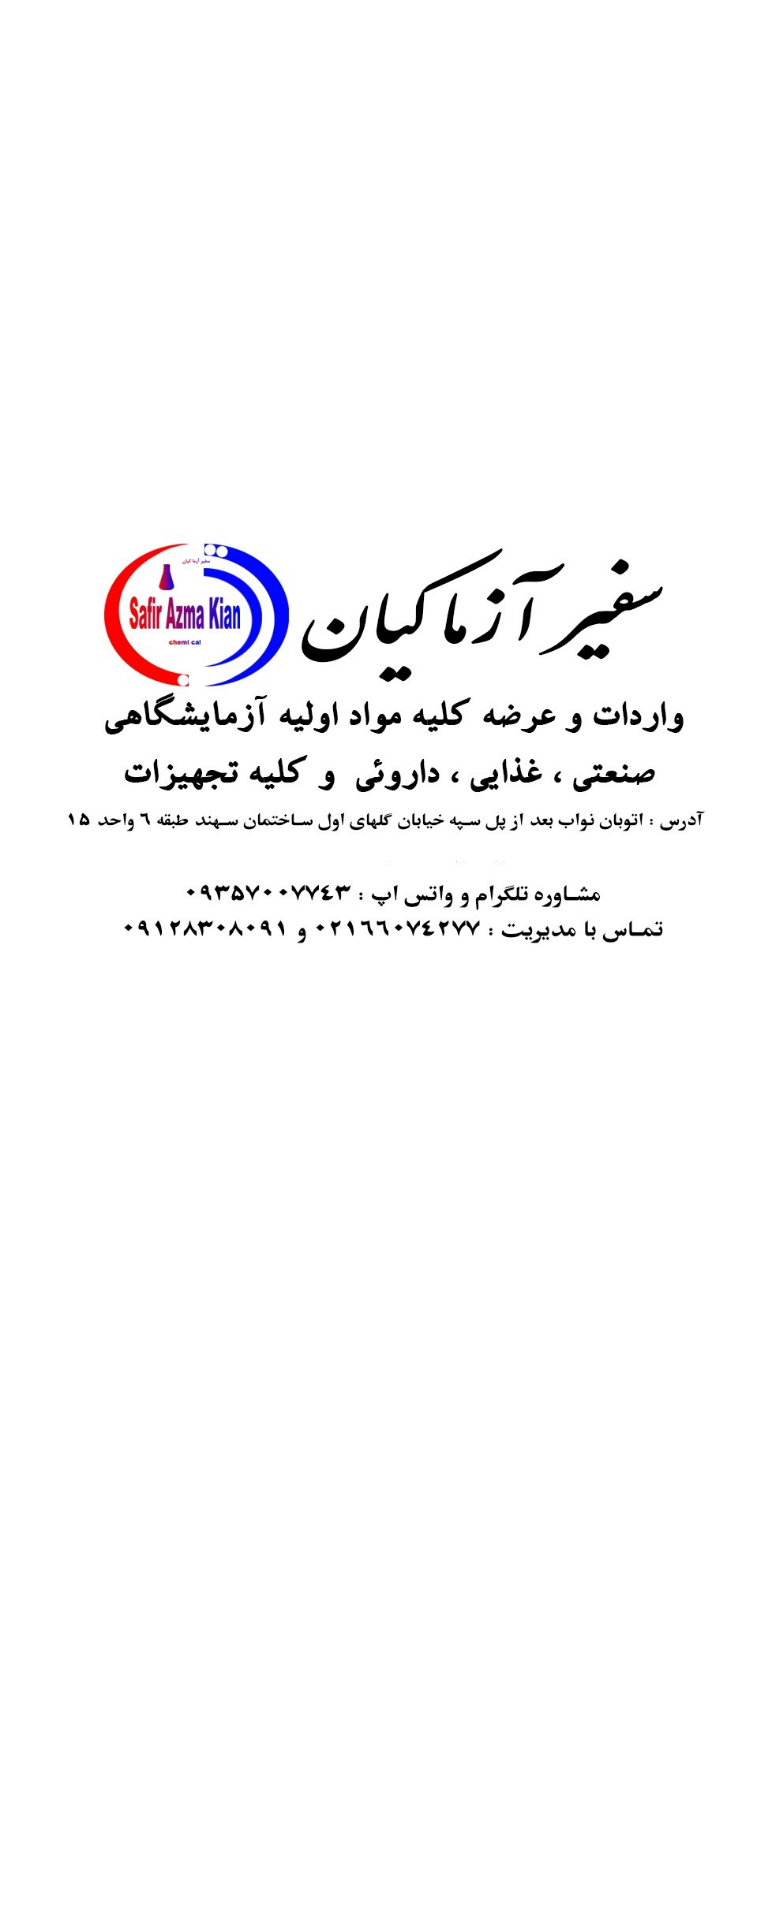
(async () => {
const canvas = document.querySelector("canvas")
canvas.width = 783
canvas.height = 1907
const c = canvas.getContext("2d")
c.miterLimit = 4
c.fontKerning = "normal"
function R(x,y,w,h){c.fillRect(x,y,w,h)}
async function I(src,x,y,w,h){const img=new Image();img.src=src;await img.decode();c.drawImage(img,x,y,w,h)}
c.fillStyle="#fff"
R(0,0,783,1907)
await I("1.png",64,533,643,414)
})()
